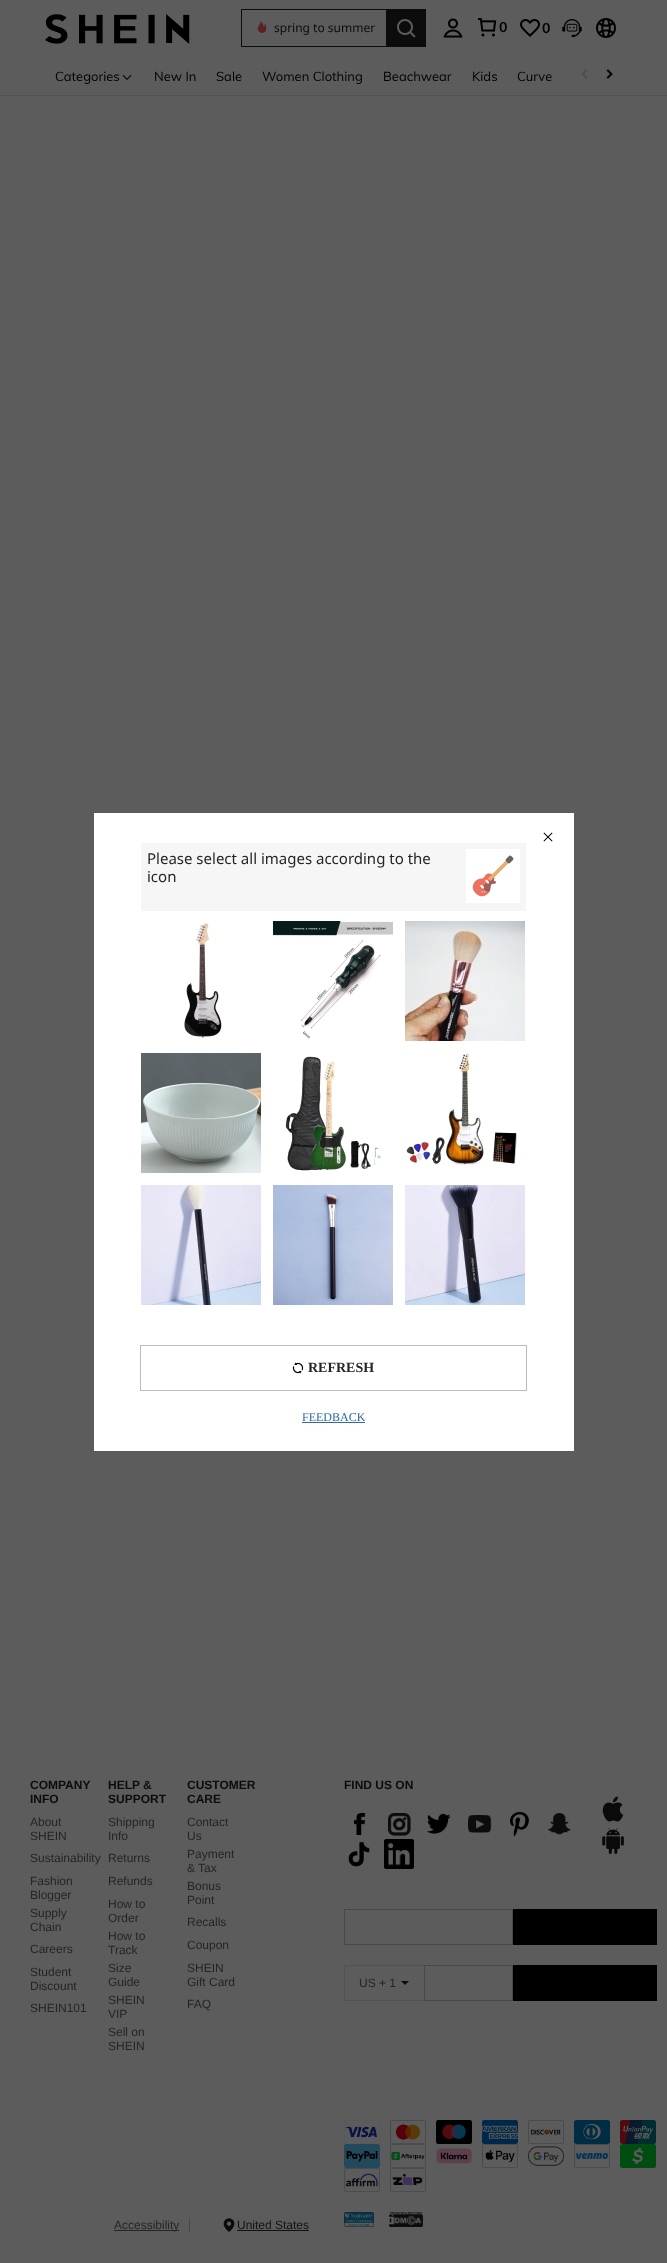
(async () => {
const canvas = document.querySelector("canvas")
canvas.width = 667
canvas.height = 2263
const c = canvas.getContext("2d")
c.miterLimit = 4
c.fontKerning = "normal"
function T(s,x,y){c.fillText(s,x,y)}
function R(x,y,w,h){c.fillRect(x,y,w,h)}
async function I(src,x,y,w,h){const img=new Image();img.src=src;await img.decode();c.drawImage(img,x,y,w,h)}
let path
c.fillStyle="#5c5c5c"
R(0,0,667,2263)
await I("1.png",45,14,145,30)
c.fillStyle="#0c0c0c"
R(241,9,145,1)
R(241,46,145,1)
R(241,9,1,38)
await I("2.png",257,20,10,13)
c.font="12px Noto Sans"
T("spring to summer",274,32)
R(386,9,40,38)
await I("3.png",397,19,19,19)
await I("4.png",443,18,20,20)
await I("5.png",478,18,19,19)
c.font="bold 14px Muli"
c.fillStyle="#000"
T("0",499,32)
await I("6.png",520,19,20,18)
T("0",542,33)
await I("7.png",562,19,20,19)
await I("8.png",596,18,20,20)
c.fillStyle="#525252"
R(0,95,667,1)
c.font="13px Muli"
c.fillStyle="#000"
T("Categories",55,81)
await I("9.png",122,75,10,5)
T("New In",154,81)
T("Sale",216,81)
T("Women Clothing",262,81)
T("Beachwear",383,81)
T("Kids",472,81)
T("Curve",517,81)
await I("10.png",581,69,7,10)
await I("11.png",606,69,7,10)
c.font="bold 12px Liberation Sans"
c.fillStyle="#0c0c0c"
T("COMPANY",30,1789)
T("INFO",30,1803)
c.font="12px Liberation Sans"
c.fillStyle="#252525"
T("About",30,1826)
T("SHEIN",30,1840)
T("Sustainability",30,1862)
T("Fashion",30,1885)
T("Blogger",30,1899)
T("Supply",30,1917)
T("Chain",30,1931)
T("Careers",30,1953)
T("Student",30,1976)
T("Discount",30,1990)
T("SHEIN101",30,2012)
c.font="bold 12px Liberation Sans"
c.fillStyle="#0c0c0c"
T("HELP &",108,1789)
T("SUPPORT",108,1803)
c.font="12px Liberation Sans"
c.fillStyle="#252525"
T("Shipping",108,1826)
T("Info",108,1840)
T("Returns",108,1862)
T("Refunds",108,1885)
T("How to",108,1908)
T("Order",108,1922)
T("How to",108,1940)
T("Track",108,1954)
T("Size",108,1972)
T("Guide",108,1986)
T("SHEIN",108,2004)
T("VIP",108,2018)
T("Sell on",108,2036)
T("SHEIN",108,2050)
c.font="bold 12px Liberation Sans"
c.fillStyle="#0c0c0c"
T("CUSTOMER",187,1789)
T("CARE",187,1803)
c.font="12px Liberation Sans"
c.fillStyle="#252525"
T("Contact",187,1826)
T("Us",187,1840)
T("Payment",187,1858)
T("& Tax",187,1872)
T("Bonus",187,1890)
T("Point",187,1904)
T("Recalls",187,1926)
T("Coupon",187,1949)
T("SHEIN",187,1972)
T("Gift Card",187,1986)
T("FAQ",187,2008)
c.font="bold 12px Liberation Sans"
c.fillStyle="#0c0c0c"
T("FIND US ON",344,1789)
await I("12.png",354,1813,12,22)
await I("13.png",388,1813,23,23)
await I("14.png",426,1813,25,21)
await I("15.png",468,1815,24,18)
await I("16.png",510,1811,20,26)
await I("17.png",548,1813,23,22)
await I("18.png",348,1842,22,25)
await I("19.png",384,1839,30,30)
await I("20.png",602,1796,22,26)
await I("21.png",602,1828,22,26)
c.strokeStyle="#494949"
c.strokeRect(344.5,1909.5,168,35)
c.fillStyle="#000"
R(513,1909,144,36)
c.fillStyle="#525252"
R(344,1965,80,1)
R(344,2000,80,1)
R(344,1965,1,36)
c.font="12px Liberation Sans"
c.fillStyle="#252525"
T("US + 1",359,1987)
c.fillStyle="#0c0c0c"
path = new Path2D("M401 1981h8l-4 4z")
c.fill(path)
c.strokeRect(424.5,1965.5,88,35)
c.fillStyle="#000"
R(513,1965,144,36)
await I("22.png",344,2120,36,24)
await I("23.png",390,2120,36,24)
await I("24.png",436,2120,36,24)
await I("25.png",482,2120,36,24)
await I("26.png",528,2120,36,24)
await I("27.png",574,2120,36,24)
await I("28.png",620,2120,36,24)
await I("29.png",344,2144,36,24)
await I("30.png",390,2144,36,24)
await I("31.png",436,2148,36,16)
await I("32.png",482,2144,36,24)
await I("33.png",528,2146,36,20)
await I("34.png",574,2144,36,24)
await I("35.png",620,2144,36,24)
await I("36.png",344,2168,36,24)
await I("37.png",390,2168,36,24)
c.fillStyle="#494949"
R(189,2218,1,14)
c.fillStyle="#252525"
R(114,2230,65,1)
T("Accessibility",114,2229)
await I("38.png",223,2218,12,14)
c.fillStyle="#121212"
T("United States",237,2229)
R(237,2230,72,1)
await I("39.png",344,2212,30,15)
await I("40.png",389,2212,34,15)
c.fillStyle="#0000004d"
c.filter="blur(0.5px)"
c.beginPath()
c.rect(94,813,480,638)
c.fill()
c.filter="none"
c.filter="blur(0.5px)"
c.beginPath()
c.rect(94,813,480,638)
c.fill()
c.filter="none"
c.fillStyle="#fff"
R(94,813,480,638)
await I("41.png",543,832,10,10)
c.fillStyle="#f6f6f6"
R(141,843,385,68)
c.font="15px Noto Sans"
c.fillStyle="#252525"
T("Please select all images according to the",147,864)
T("icon",147,882)
c.fillStyle="#fff"
R(466,849,54,54)
await I("42.png",472,855,42,42)
await I("43.png",142,923,80,115)
await I("44.png",273,921,120,118)
await I("45.png",405,921,120,120)
await I("46.png",141,1053,120,120)
await I("47.png",285,1056,97,115)
await I("48.png",406,1053,111,112)
await I("49.png",141,1185,120,120)
await I("50.png",273,1185,120,120)
await I("51.png",405,1185,120,120)
c.strokeStyle="#bbb"
c.strokeRect(140.5,1345.5,386,45)
await I("52.png",292,1362,12,12)
c.font="bold 14px Liberation Serif"
c.fillStyle="#252525"
T("REFRESH",308,1372)
c.font="12px Liberation Serif"
c.fillStyle="#2d68a8"
T("FEEDBACK",302,1421)
R(302,1422,63,1)
})()
